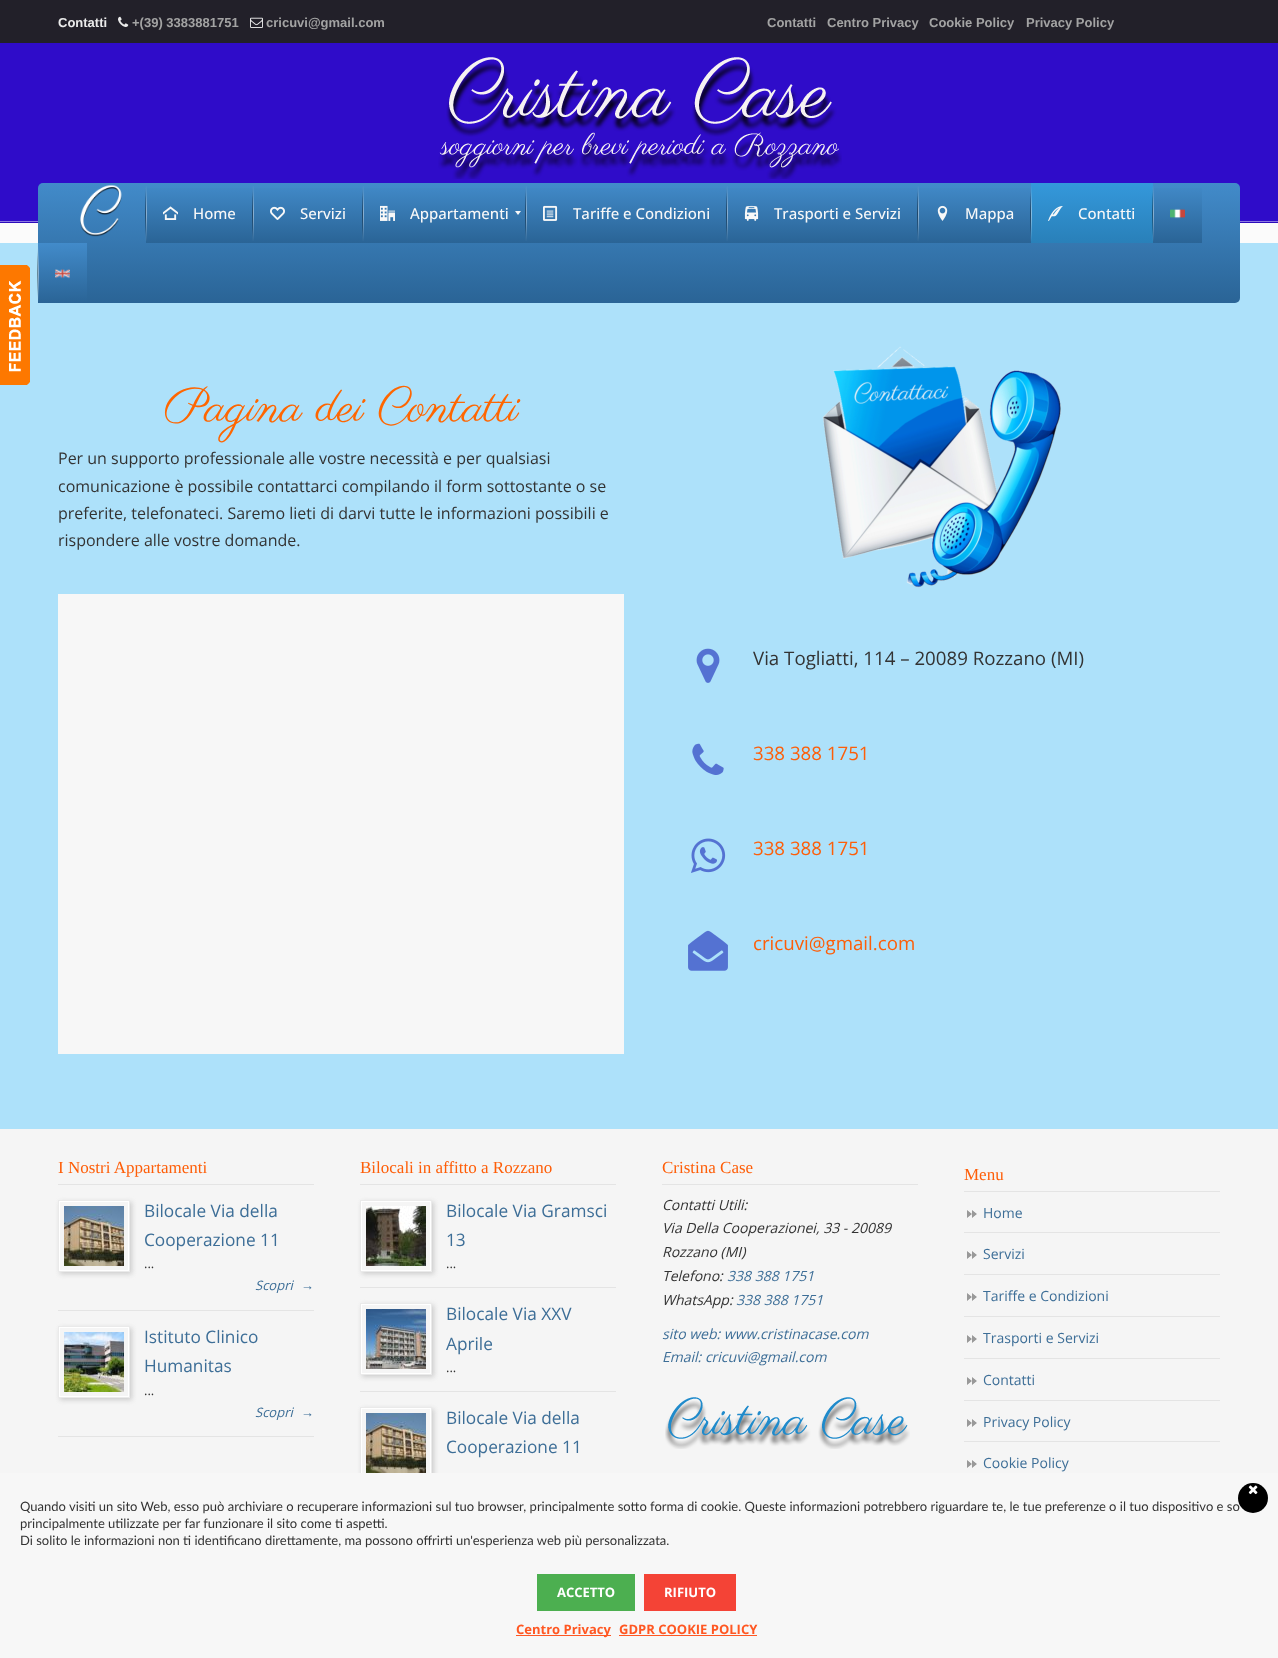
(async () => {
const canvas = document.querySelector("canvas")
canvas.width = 1278
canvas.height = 1658
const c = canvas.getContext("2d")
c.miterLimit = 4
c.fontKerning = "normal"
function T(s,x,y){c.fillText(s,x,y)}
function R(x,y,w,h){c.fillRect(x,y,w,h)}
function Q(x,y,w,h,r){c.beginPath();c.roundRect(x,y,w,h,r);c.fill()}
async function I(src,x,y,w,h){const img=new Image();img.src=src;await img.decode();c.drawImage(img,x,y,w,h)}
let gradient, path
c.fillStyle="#fbfbfb"
R(0,0,1278,1658)
c.fillStyle="#ade1fa"
R(0,243,1278,886)
await I("1.png",0,265,30,120)
c.fillStyle="#2f0cc9"
R(0,43,1278,180)
c.fillStyle="#222029"
R(0,0,1278,43)
c.font="bold 13px Liberation Sans"
c.fillStyle="#ebebeb"
T("Contatti",58,27)
await I("2.png",118,16,11,11)
c.fillStyle="#a3a3a3"
T("+(39) 3383881751",132,27)
await I("3.png",250,17,13,11)
T("cricuvi@gmail.com",266,27)
T("Contatti",767,27)
T("Centro Privacy",827,27)
T("Cookie Policy",929,27)
T("Privacy Policy",1026,27)
await I("4.png",438,57,404,122)
await I("5.png",0,221,1278,2)
gradient = c.createLinearGradient(639,183,639,303)
gradient.addColorStop(0,"#428bca")
gradient.addColorStop(1,"#2a6496")
c.fillStyle = gradient
Q(38,183,1202,120,5)
await I("6.png",80,184,42,53)
gradient = c.createLinearGradient(200,183,200,243)
gradient.addColorStop(0,"#428bca")
gradient.addColorStop(1,"#2a6496")
c.fillStyle = gradient
R(146,188,107,55)
await I("7.png",145,186,2,55)
await I("8.png",163,206,15,14)
c.font="500 15px Open Sans"
c.fillStyle="#f8f8f8"
T("Home",193,219)
gradient = c.createLinearGradient(308,183,308,243)
gradient.addColorStop(0,"#428bca")
gradient.addColorStop(1,"#2a6496")
c.fillStyle = gradient
R(253,188,110,55)
await I("9.png",252,186,2,55)
await I("10.png",270,206,15,14)
c.fillStyle="#f8f8f8"
T("Servizi",300,219)
gradient = c.createLinearGradient(445,183,445,243)
gradient.addColorStop(0,"#428bca")
gradient.addColorStop(1,"#2a6496")
c.fillStyle = gradient
R(363,188,163,55)
await I("9.png",362,186,2,55)
await I("11.png",380,205,15,16)
c.fillStyle="#f8f8f8"
T("Appartamenti",410,219)
path = new Path2D("M515 211h6l-3 4z")
c.fill(path)
gradient = c.createLinearGradient(627,183,627,243)
gradient.addColorStop(0,"#428bca")
gradient.addColorStop(1,"#2a6496")
c.fillStyle = gradient
R(526,188,201,55)
await I("9.png",525,186,2,55)
await I("12.png",543,205,15,16)
c.fillStyle="#f8f8f8"
T("Tariffe e Condizioni",573,219)
gradient = c.createLinearGradient(823,183,823,243)
gradient.addColorStop(0,"#428bca")
gradient.addColorStop(1,"#2a6496")
c.fillStyle = gradient
R(727,188,191,55)
await I("9.png",726,186,2,55)
await I("13.png",744,205,15,16)
c.fillStyle="#f8f8f8"
T("Trasporti e Servizi",774,219)
gradient = c.createLinearGradient(975,183,975,243)
gradient.addColorStop(0,"#428bca")
gradient.addColorStop(1,"#2a6496")
c.fillStyle = gradient
R(918,188,113,55)
await I("9.png",917,186,2,55)
await I("14.png",937,205,11,16)
c.fillStyle="#f8f8f8"
T("Mappa",965,219)
gradient = c.createLinearGradient(1092,183,1092,243)
gradient.addColorStop(0,"#3498db")
gradient.addColorStop(1,"#2980b9")
c.fillStyle = gradient
R(1031,183,122,60)
await I("15.png",1030,186,2,55)
await I("16.png",1048,206,15,15)
c.fillStyle="#f8f8f8"
T("Contatti",1078,219)
gradient = c.createLinearGradient(1178,183,1178,243)
gradient.addColorStop(0,"#428bca")
gradient.addColorStop(1,"#2a6496")
c.fillStyle = gradient
R(1153,188,49,55)
await I("17.png",1152,186,2,55)
await I("18.png",1170,208,15,11)
gradient = c.createLinearGradient(62,243,63,303)
gradient.addColorStop(0,"#428bca")
gradient.addColorStop(1,"#2a6496")
c.fillStyle = gradient
R(38,243,49,60)
await I("19.png",37,246,2,55)
await I("20.png",55,269,15,10)
c.font="48px Parisienne"
c.fillStyle="#f60"
T("Pagina dei Contatti",164,421)
c.font="16px Open Sans"
c.fillStyle="#333"
T("Per un supporto professionale alle vostre necessità e per qualsiasi",58,464)
T("comunicazione è possibile contattarci compilando il form sottostante o se",58,492)
T("preferite, telefonateci. Saremo lieti di darvi tutte le informazioni possibili e",58,519)
T("rispondere alle vostre domande.",58,546)
c.fillStyle="#f7f7f7"
R(58,594,566,460)
await I("21.png",822,346,239,242)
await I("22.png",696,648,24,35)
c.font="18.7px Open Sans"
c.fillStyle="#333"
T("Via Togliatti, 114 – 20089 Rozzano (MI)",753,665)
await I("23.png",692,743,32,32)
c.fillStyle="#fe5e08"
T("338 388 1751",753,760)
await I("24.png",691,838,35,35)
T("338 388 1751",753,855)
await I("25.png",688,930,40,41)
T("cricuvi@gmail.com",753,950)
c.fillStyle="#f5f5f5"
R(0,1129,1278,344)
c.fillStyle="#e4e4e4"
R(58,1184,256,1)
c.font="17px Liberation Serif"
c.fillStyle="#fe5e08"
T("I Nostri Appartamenti",58,1173)
c.fillStyle="#e4e4e4"
R(58,1310,256,1)
c.save()
path = new Path2D("M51 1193h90v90h-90zm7 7h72v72h-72z")
c.clip(path,"evenodd")
c.fillStyle="#ccc"
c.filter="blur(2.5px)"
c.beginPath()
c.rect(60,1202,72,72)
c.fill()
c.filter="none"
c.restore()
c.strokeStyle="#eaeaea"
c.strokeRect(58.5,1200.5,71,71)
c.strokeStyle="#fff"
c.strokeRect(59.5,1201.5,69,69)
await I("26.png",64,1206,60,60)
c.font="17.25px Open Sans"
c.fillStyle="#3d6e97"
T("Bilocale Via della",144,1217)
T("Cooperazione 11",144,1246)
c.font="13px Open Sans"
c.fillStyle="#333"
T("...",144,1268)
c.font="italic 13px Open Sans"
c.fillStyle="#3d6e97"
T("Scopri",255,1290)
c.font="13px Liberation Serif"
T("→",301,1290)
c.fillStyle="#e4e4e4"
R(58,1436,256,1)
c.save()
path = new Path2D("M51 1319h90v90h-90zm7 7h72v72h-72z")
c.clip(path,"evenodd")
c.fillStyle="#ccc"
c.filter="blur(2.5px)"
c.beginPath()
c.rect(60,1328,72,72)
c.fill()
c.filter="none"
c.restore()
c.strokeStyle="#eaeaea"
c.strokeRect(58.5,1326.5,71,71)
c.strokeStyle="#fff"
c.strokeRect(59.5,1327.5,69,69)
await I("27.png",64,1332,60,60)
c.font="17.25px Open Sans"
c.fillStyle="#3d6e97"
T("Istituto Clinico",144,1343)
T("Humanitas",144,1372)
c.font="13px Open Sans"
c.fillStyle="#333"
T("...",144,1395)
c.font="italic 13px Open Sans"
c.fillStyle="#3d6e97"
T("Scopri",255,1417)
c.font="13px Liberation Serif"
T("→",301,1417)
c.fillStyle="#e4e4e4"
R(360,1184,256,1)
c.font="17px Liberation Serif"
c.fillStyle="#fe5e08"
T("Bilocali in affitto a Rozzano",360,1173)
c.fillStyle="#e4e4e4"
R(360,1287,256,1)
c.save()
path = new Path2D("M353 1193h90v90h-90zm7 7h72v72h-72z")
c.clip(path,"evenodd")
c.fillStyle="#ccc"
c.filter="blur(2.5px)"
c.beginPath()
c.rect(362,1202,72,72)
c.fill()
c.filter="none"
c.restore()
c.strokeStyle="#eaeaea"
c.strokeRect(360.5,1200.5,71,71)
c.strokeStyle="#fff"
c.strokeRect(361.5,1201.5,69,69)
await I("28.png",366,1206,60,60)
c.font="17.25px Open Sans"
c.fillStyle="#3d6e97"
T("Bilocale Via Gramsci",446,1217)
T("13",446,1246)
c.font="13px Open Sans"
c.fillStyle="#333"
T("...",446,1268)
c.fillStyle="#e4e4e4"
R(360,1391,256,1)
c.save()
path = new Path2D("M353 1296h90v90h-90zm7 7h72v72h-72z")
c.clip(path,"evenodd")
c.fillStyle="#ccc"
c.filter="blur(2.5px)"
c.beginPath()
c.rect(362,1305,72,72)
c.fill()
c.filter="none"
c.restore()
c.strokeStyle="#eaeaea"
c.strokeRect(360.5,1303.5,71,71)
c.strokeStyle="#fff"
c.strokeRect(361.5,1304.5,69,69)
await I("29.png",366,1309,60,60)
c.font="17.25px Open Sans"
c.fillStyle="#3d6e97"
T("Bilocale Via XXV",446,1320)
T("Aprile",446,1350)
c.font="13px Open Sans"
c.fillStyle="#333"
T("...",446,1372)
c.save()
path = new Path2D("M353 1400h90v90h-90zm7 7h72v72h-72z")
c.clip(path,"evenodd")
c.fillStyle="#ccc"
c.filter="blur(2.5px)"
c.beginPath()
c.rect(362,1409,72,72)
c.fill()
c.filter="none"
c.restore()
c.strokeStyle="#eaeaea"
c.strokeRect(360.5,1407.5,71,71)
c.strokeStyle="#fff"
c.strokeRect(361.5,1408.5,69,69)
await I("26.png",366,1413,60,60)
c.font="17.25px Open Sans"
c.fillStyle="#3d6e97"
T("Bilocale Via della",446,1424)
T("Cooperazione 11",446,1453)
c.fillStyle="#e4e4e4"
R(662,1184,256,1)
c.font="17px Liberation Serif"
c.fillStyle="#fe5e08"
T("Cristina Case",662,1173)
c.font="italic 14px Open Sans"
c.fillStyle="#333"
T("Contatti Utili:",662,1210)
T("Via Della Cooperazionei, 33 - 20089",662,1233)
T("Rozzano (MI)",662,1257)
T("Telefono:",662,1281)
c.fillStyle="#3d6e97"
T("338 388 1751",727,1281)
c.fillStyle="#333"
T("WhatsApp:",662,1305)
c.fillStyle="#3d6e97"
T("338 388 1751",736,1305)
T("sito web: www.cristinacase.com",662,1339)
T("Email: cricuvi@gmail.com",662,1362)
await I("30.png",665,1397,245,52)
c.fillStyle="#e4e4e4"
R(964,1191,256,1)
c.font="17px Liberation Serif"
c.fillStyle="#fe5e08"
T("Menu",964,1180)
c.fillStyle="#e4e4e4"
R(964,1232,256,1)
await I("31.png",967,1210,10,8)
c.font="14px Open Sans"
c.fillStyle="#3d6e97"
T("Home",983,1218)
c.fillStyle="#e4e4e4"
R(964,1274,256,1)
await I("31.png",967,1251,10,8)
c.fillStyle="#3d6e97"
T("Servizi",983,1259)
c.fillStyle="#e4e4e4"
R(964,1316,256,1)
await I("31.png",967,1293,10,8)
c.fillStyle="#3d6e97"
T("Tariffe e Condizioni",983,1301)
c.fillStyle="#e4e4e4"
R(964,1358,256,1)
await I("31.png",967,1335,10,8)
c.fillStyle="#3d6e97"
T("Trasporti e Servizi",983,1343)
c.fillStyle="#e4e4e4"
R(964,1400,256,1)
await I("31.png",967,1377,10,8)
c.fillStyle="#3d6e97"
T("Contatti",983,1385)
c.fillStyle="#e4e4e4"
R(964,1441,256,1)
await I("31.png",967,1419,10,8)
c.fillStyle="#3d6e97"
T("Privacy Policy",983,1427)
await I("31.png",967,1460,10,8)
T("Cookie Policy",983,1468)
c.fillStyle="#f7f7f7"
R(0,1473,1278,185)
c.font="13px Lato"
c.fillStyle="#333"
T("Quando visiti un sito Web, esso può archiviare o recuperare informazioni sul tuo browser, principalmente sotto forma di cookie. Queste informazioni potrebbero riguardare te, le tue preferenze o il tuo dispositivo e so",20,1511)
c.fillStyle="#000"
c.beginPath()
c.arc(1253,1498,15,0,7)
c.fill()
await I("32.png",1248,1485,10,10)
c.fillStyle="#333"
T("principalmente utilizzate per far funzionare il sito come ti aspetti.",20,1528)
T("Di solito le informazioni non ti identificano direttamente, ma possono offrirti un'esperienza web più personalizzata.",20,1545)
c.fillStyle="#4caf50"
R(537,1574,98,37)
c.font="bold 13px Open Sans"
c.fillStyle="#fff"
T("ACCETTO",557,1597)
c.fillStyle="#f44336"
R(644,1574,92,37)
c.fillStyle="#fff"
T("RIFIUTO",664,1597)
c.fillStyle="#ff5722"
R(516,1635,95,1)
T("Centro Privacy",516,1634)
T("GDPR COOKIE POLICY",619,1634)
R(619,1635,138,1)
})()
